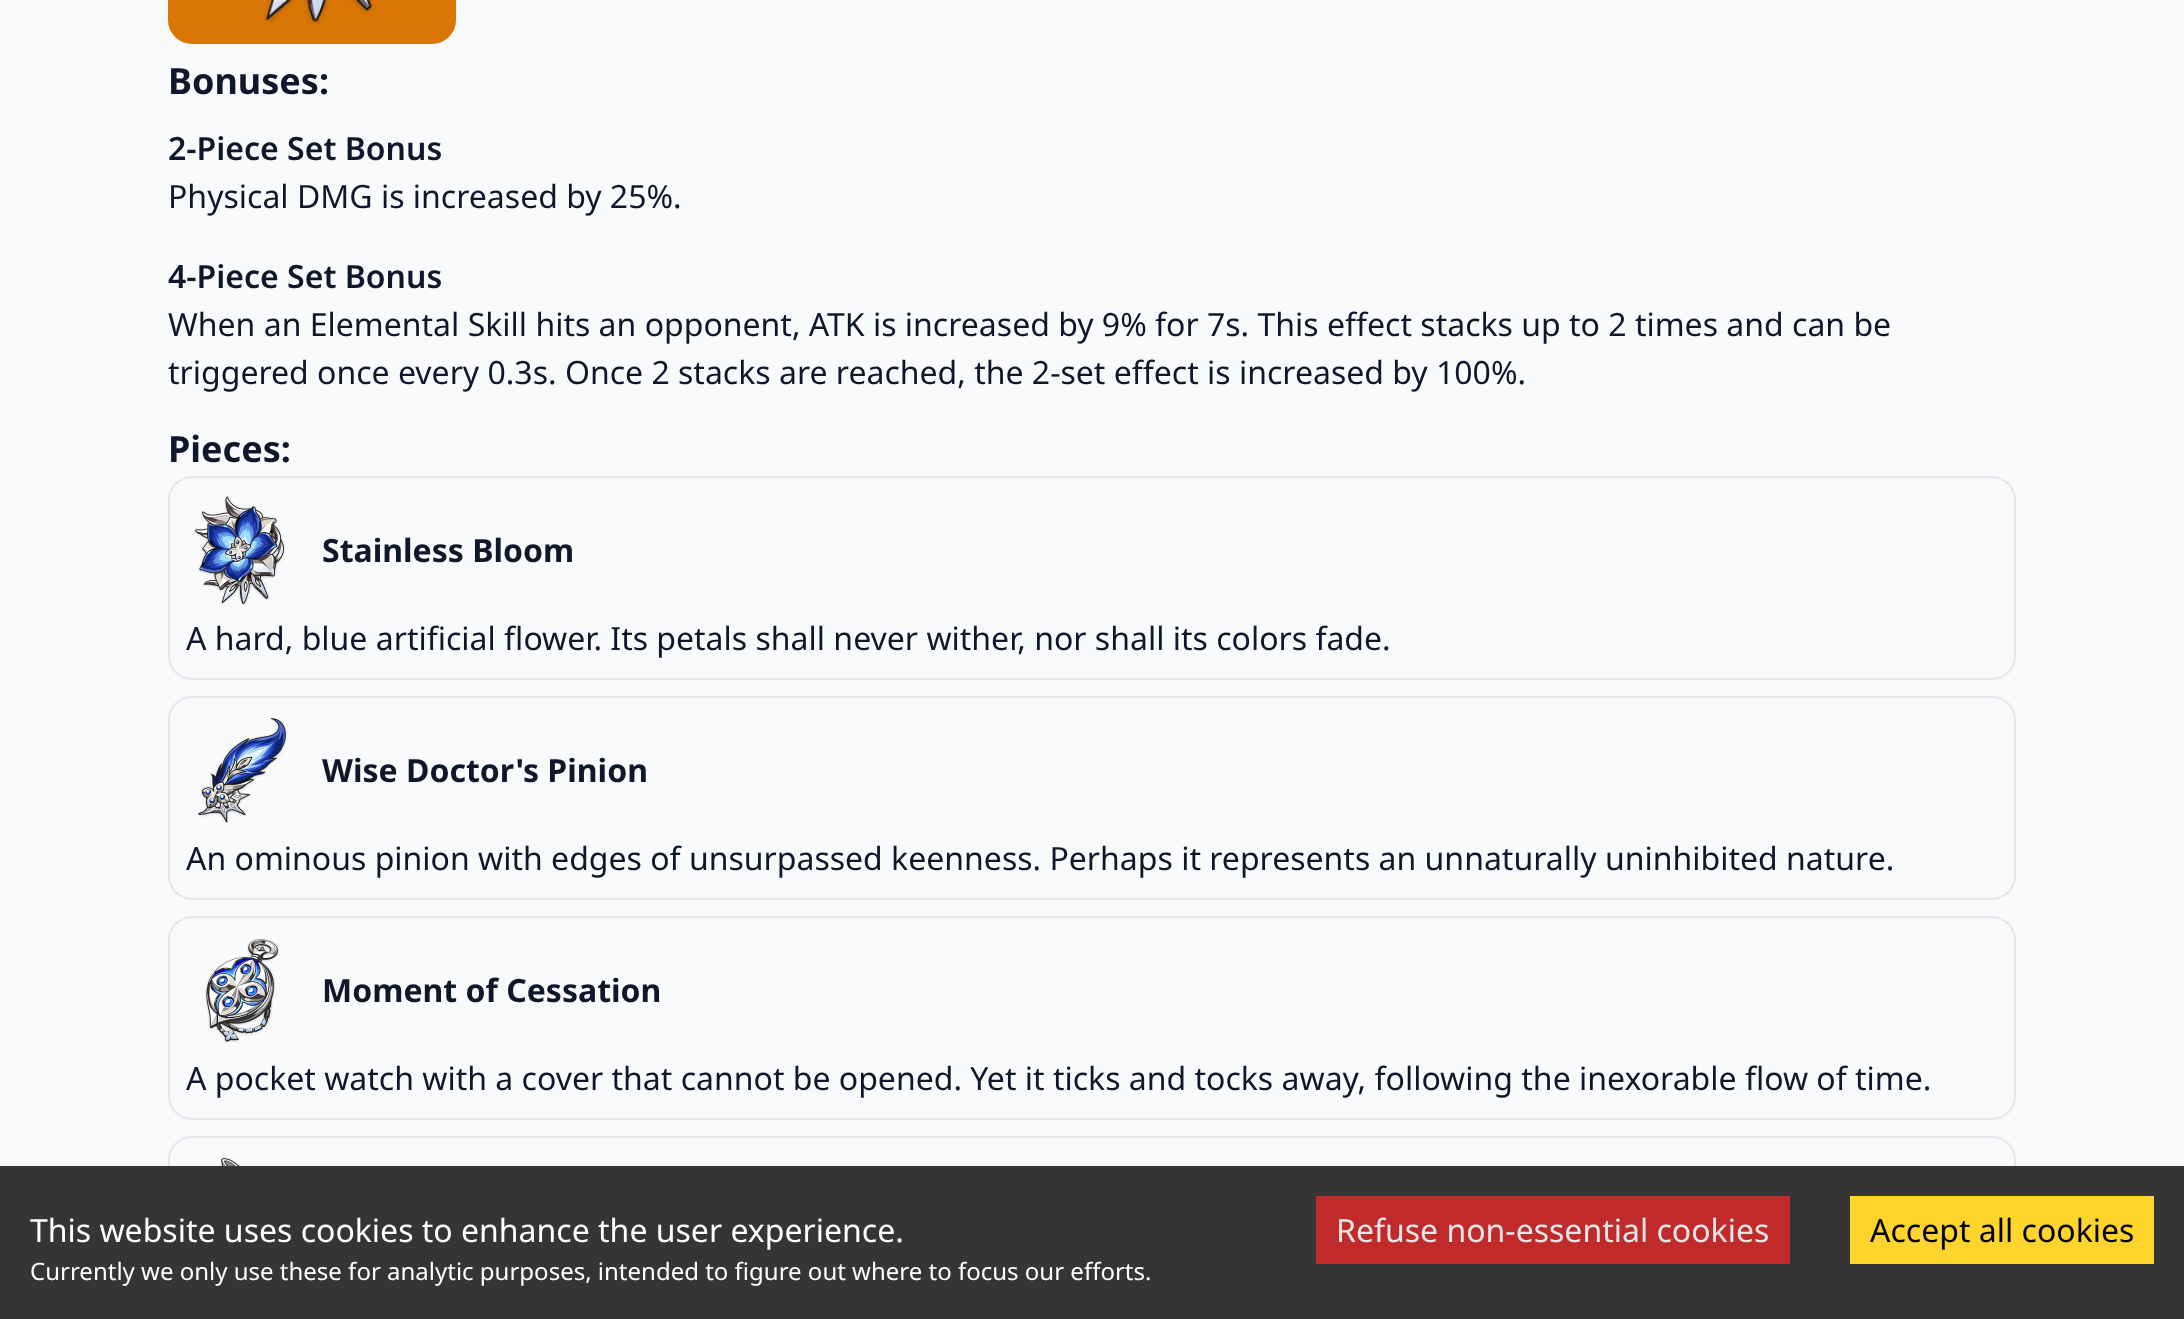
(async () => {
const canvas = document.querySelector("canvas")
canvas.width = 2184
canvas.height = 1319
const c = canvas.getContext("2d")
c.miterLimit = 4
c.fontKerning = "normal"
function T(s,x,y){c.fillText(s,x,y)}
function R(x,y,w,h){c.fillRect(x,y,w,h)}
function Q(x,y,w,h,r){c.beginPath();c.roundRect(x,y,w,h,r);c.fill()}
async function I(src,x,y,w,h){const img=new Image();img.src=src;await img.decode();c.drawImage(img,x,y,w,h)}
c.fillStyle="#f8fafc"
R(0,0,2184,1319)
c.fillStyle="#d97706"
Q(168,-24,288,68,24)
await I("1.png",264,0,111,25)
c.font="bold 36px Noto Sans"
c.fillStyle="#0f172a"
T("Bonuses:",168,94)
c.font="600 32px Noto Sans"
T("2-Piece Set Bonus",168,160)
c.font="32px Noto Sans"
T("Physical DMG is increased by 25%.",168,208)
c.font="600 32px Noto Sans"
T("4-Piece Set Bonus",168,288)
c.font="32px Noto Sans"
T("When an Elemental Skill hits an opponent, ATK is increased by 9% for 7s. This effect stacks up to 2 times and can be",168,336)
T("triggered once every 0.3s. Once 2 stacks are reached, the 2-set effect is increased by 100%.",168,384)
c.font="bold 36px Noto Sans"
T("Pieces:",168,462)
c.beginPath()
c.roundRect(169,477,1846,202,23)
c.strokeStyle="#e5e7eb"
c.lineWidth=2
c.stroke()
await I("2.png",194,496,92,110)
c.font="bold 32px Noto Sans"
T("Stainless Bloom",322,562)
c.font="32px Noto Sans"
T("A hard, blue artificial flower. Its petals shall never wither, nor shall its colors fade.",186,650)
c.beginPath()
c.roundRect(169,697,1846,202,23)
c.stroke()
await I("3.png",197,718,91,106)
c.font="bold 32px Noto Sans"
T("Wise Doctor's Pinion",322,782)
c.font="32px Noto Sans"
T("An ominous pinion with edges of unsurpassed keenness. Perhaps it represents an unnaturally uninhibited nature.",186,870)
c.beginPath()
c.roundRect(169,917,1846,202,23)
c.stroke()
await I("4.png",205,938,75,105)
c.font="bold 32px Noto Sans"
T("Moment of Cessation",322,1002)
c.font="32px Noto Sans"
T("A pocket watch with a cover that cannot be opened. Yet it ticks and tocks away, following the inexorable flow of time.",186,1090)
c.beginPath()
c.roundRect(169,1137,1846,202,23)
c.stroke()
await I("5.png",220,1157,21,9)
c.fillStyle="#353535"
R(0,1166,2184,153)
c.fillStyle="#fff"
T("This website uses cookies to enhance the user experience.",30,1242)
c.font="24px Noto Sans"
T("Currently we only use these for analytic purposes, intended to figure out where to focus our efforts.",30,1280)
c.fillStyle="#c12a2a"
R(1316,1196,474,68)
c.font="32px Noto Sans"
c.fillStyle="#e5e5e5"
T("Refuse non-essential cookies",1336,1242)
c.fillStyle="#ffd42d"
R(1850,1196,304,68)
c.fillStyle="#000"
T("Accept all cookies",1870,1242)
})()
